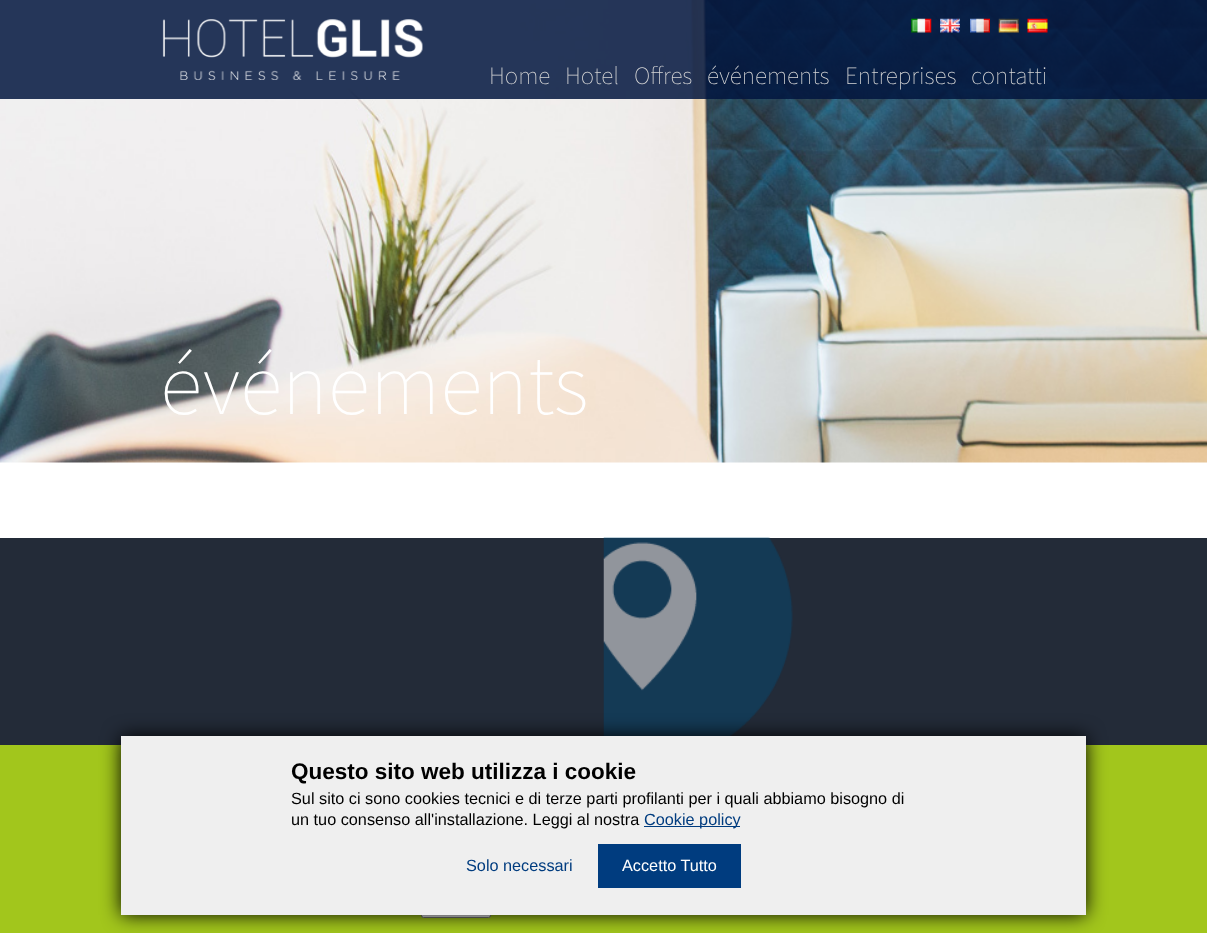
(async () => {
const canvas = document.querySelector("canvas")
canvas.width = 1207
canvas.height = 933
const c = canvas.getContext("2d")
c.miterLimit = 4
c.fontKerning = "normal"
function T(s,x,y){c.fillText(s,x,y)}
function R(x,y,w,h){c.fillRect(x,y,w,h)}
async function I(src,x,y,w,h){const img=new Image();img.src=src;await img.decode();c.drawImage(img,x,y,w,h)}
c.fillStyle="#fff"
R(0,0,1207,933)
await I("7.png",0,0,1207,463)
c.fillStyle="#01153ed9"
R(0,0,1207,99)
await I("1.png",162,19,261,61)
await I("2.png",911,18,21,15)
await I("3.png",940,18,20,15)
await I("4.png",970,18,20,15)
await I("5.png",998,18,21,15)
await I("6.png",1027,18,21,15)
c.font="200 25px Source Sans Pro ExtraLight"
c.fillStyle="#d6d6d6"
T("Home",489,84)
T("Hotel",565,84)
T("Offres",634,84)
T("événements",707,84)
T("Entreprises",845,84)
T("contatti",971,84)
c.font="200 87.5px Source Sans Pro ExtraLight"
c.fillStyle="#fff"
T("événements",160,414)
c.fillStyle="#232b38"
R(0,538,1207,207)
await I("8.png",603,537,190,199)
c.fillStyle="#a2c61c"
R(0,745,1207,188)
c.fillStyle="#efefef"
c.beginPath()
c.roundRect(421.5,881.5,69,36,2)
c.fill()
c.strokeStyle="#767676"
c.stroke()
c.fillStyle="#000"
c.filter="blur(9.5px)"
c.beginPath()
c.rect(121,736,965,179)
c.fill()
c.filter="none"
c.fillStyle="#efefef"
R(121,736,965,179)
c.font="bold 22.5px Liberation Sans"
c.fillStyle="#000"
T("Questo sito web utilizza i cookie",291,779)
c.font="16.25px Liberation Sans"
T("Sul sito ci sono cookies tecnici e di terze parti profilanti per i quali abbiamo bisogno di",291,804)
T("un tuo consenso all'installazione. Leggi al nostra",291,825)
c.fillStyle="#003c7f"
R(644,826,96,1)
T("Cookie policy",644,825)
T("Solo necessari",466,871)
R(598,844,143,44)
c.fillStyle="#fff"
T("Accetto Tutto",622,871)
})()
